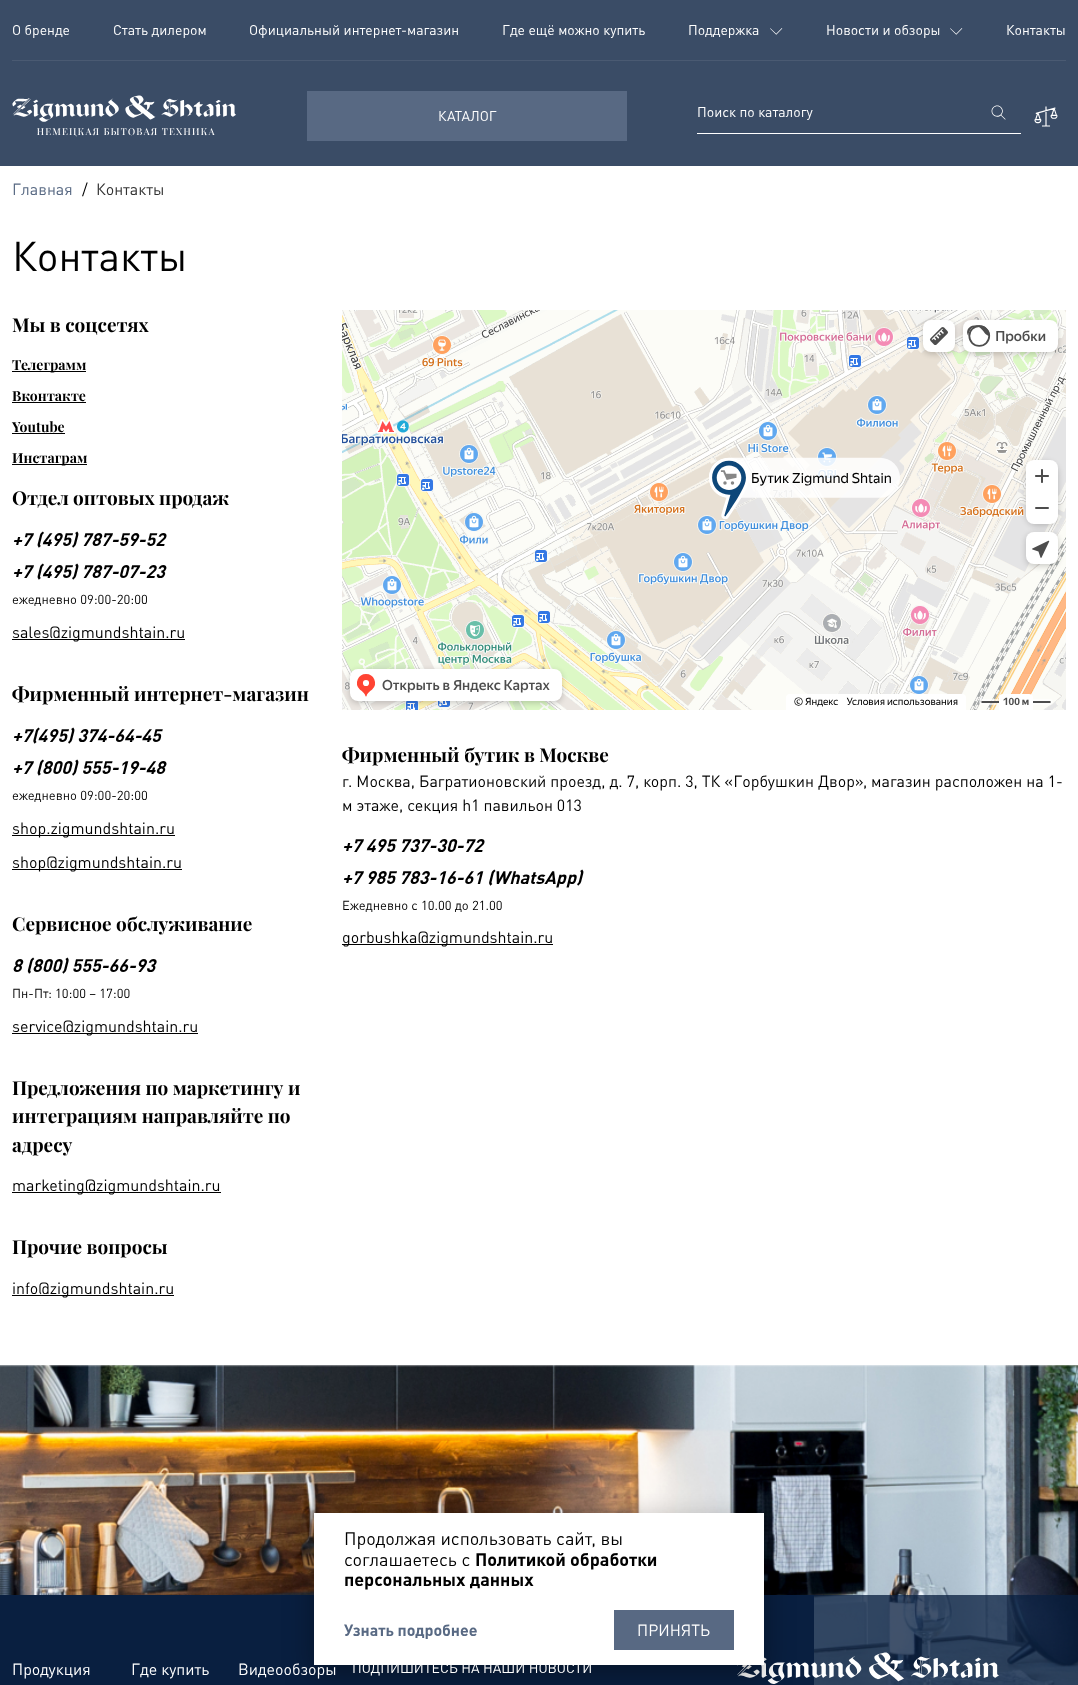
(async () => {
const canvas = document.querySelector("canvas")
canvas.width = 1078
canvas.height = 1685
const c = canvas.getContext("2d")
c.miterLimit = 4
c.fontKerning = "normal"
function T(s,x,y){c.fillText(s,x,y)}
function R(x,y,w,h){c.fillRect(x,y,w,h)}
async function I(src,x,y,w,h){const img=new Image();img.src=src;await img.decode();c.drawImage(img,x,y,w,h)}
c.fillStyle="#fff"
R(0,0,1078,1685)
c.fillStyle="#3a4c66"
R(0,0,1078,166)
c.fillStyle="#4a5a72"
R(12,60,1054,1)
c.font="14px DIN"
c.fillStyle="#fff"
T("О бренде",12,35)
T("Стать дилером",113,35)
T("Официальный интернет-магазин",249,35)
T("Где ещё можно купить",502,35)
T("Поддержка",688,35)
await I("1.png",770,28,13,7)
T("Новости и обзоры",826,35)
await I("1.png",950,28,13,7)
T("Контакты",1006,35)
await I("2.png",12,95,224,42)
c.fillStyle="#586983"
R(307,91,320,50)
c.fillStyle="#fff"
T("КАТАЛОГ",438,121)
R(697,133,324,1)
T("Поиск по каталогу",697,117)
await I("3.png",991,105,15,15)
await I("4.png",1034,106,24,21)
c.font="16px DIN"
c.fillStyle="#586983"
T("Главная",12,195)
c.fillStyle="#000"
T("/",82,195)
c.fillStyle="#333"
T("Контакты",96,195)
c.font="41px DIN"
c.fillStyle="#000"
T("Контакты",12,271)
c.font="bold 19px Playfair Display"
T("Мы в соцсетях",12,332)
R(12,371,74,1)
c.font="bold 14px Playfair Display"
T("Телеграмм",12,370)
T("Вконтакте",12,401)
R(12,402,74,1)
T("Youtube",12,432)
R(12,433,53,1)
R(12,464,75,1)
T("Инстаграм",12,463)
c.font="bold 19px Playfair Display"
T("Отдел оптовых продаж",12,505)
c.font="italic bold 18px DIN"
T("+7 (495) 787-59-52",12,546)
T("+7 (495) 787-07-23",12,578)
c.font="13px DIN"
T("ежедневно 09:00-20:00",12,604)
R(12,639,173,1)
c.font="16px DIN"
T("sales@zigmundshtain.ru",12,638)
c.font="bold 19px Playfair Display"
T("Фирменный интернет-магазин",12,701)
c.font="italic bold 18px DIN"
T("+7(495) 374-64-45",12,742)
T("+7 (800) 555-19-48",12,774)
c.font="13px DIN"
T("ежедневно 09:00-20:00",12,800)
R(12,835,163,1)
c.font="16px DIN"
T("shop.zigmundshtain.ru",12,834)
R(12,869,170,1)
T("shop@zigmundshtain.ru",12,868)
c.font="bold 19px Playfair Display"
T("Сервисное обслуживание",12,931)
c.font="italic bold 18px DIN"
T("8 (800) 555-66-93",12,972)
c.font="13px DIN"
T("Пн-Пт: 10:00 – 17:00",12,998)
R(12,1033,186,1)
c.font="16px DIN"
T("service@zigmundshtain.ru",12,1032)
c.font="bold 19px Playfair Display"
T("Предложения по маркетингу и",12,1095)
T("интеграциям направляйте по",12,1123)
T("адресу",12,1152)
R(12,1192,209,1)
c.font="16px DIN"
T("marketing@zigmundshtain.ru",12,1191)
c.font="bold 19px Playfair Display"
T("Прочие вопросы",12,1254)
R(12,1295,162,1)
c.font="16px DIN"
T("info@zigmundshtain.ru",12,1294)
await I("5.png",342,310,724,400)
c.font="bold 19px Playfair Display"
T("Фирменный бутик в Москве",342,762)
c.font="16px DIN"
T("г. Москва, Багратионовский проезд, д. 7, корп. 3, ТК «Горбушкин Двор», магазин расположен на 1-",342,787)
T("м этаже, секция h1 павильон 013",342,811)
c.font="italic bold 18px DIN"
T("+7 495 737-30-72",342,852)
T("+7 985 783-16-61 (WhatsApp)",342,884)
c.font="13px DIN"
T("Ежедневно с 10.00 до 21.00",342,910)
R(342,944,211,1)
c.font="16px DIN"
T("gorbushka@zigmundshtain.ru",342,943)
await I("6.png",0,1365,1078,320)
c.fillStyle="#091f40"
R(0,1595,814,90)
c.fillStyle="#091f40c4"
R(814,1595,264,90)
await I("7.png",737,1652,262,32)
c.fillStyle="#00000059"
c.filter="blur(15px)"
c.beginPath()
c.rect(314,1523,450,152)
c.fill()
c.filter="none"
c.fillStyle="#fff"
R(314,1513,450,152)
c.font="18px DIN"
c.fillStyle="#000"
T("Продолжая использовать сайт, вы",344,1545)
T("соглашаетесь с",344,1566)
c.font="bold 18px DIN"
T("Политикой обработки",475,1566)
T("персональных данных",344,1586)
c.font="bold 16px DIN"
c.fillStyle="#586983"
T("Узнать подробнее",344,1636)
R(614,1610,120,40)
c.font="16px DIN"
c.fillStyle="#fff"
T("ПРИНЯТЬ",637,1636)
T("Продукция",12,1675)
T("Где купить",131,1675)
T("Видеообзоры",238,1675)
c.font="14px DIN"
T("ПОДПИШИТЕСЬ НА НАШИ НОВОСТИ",352,1673)
})()
